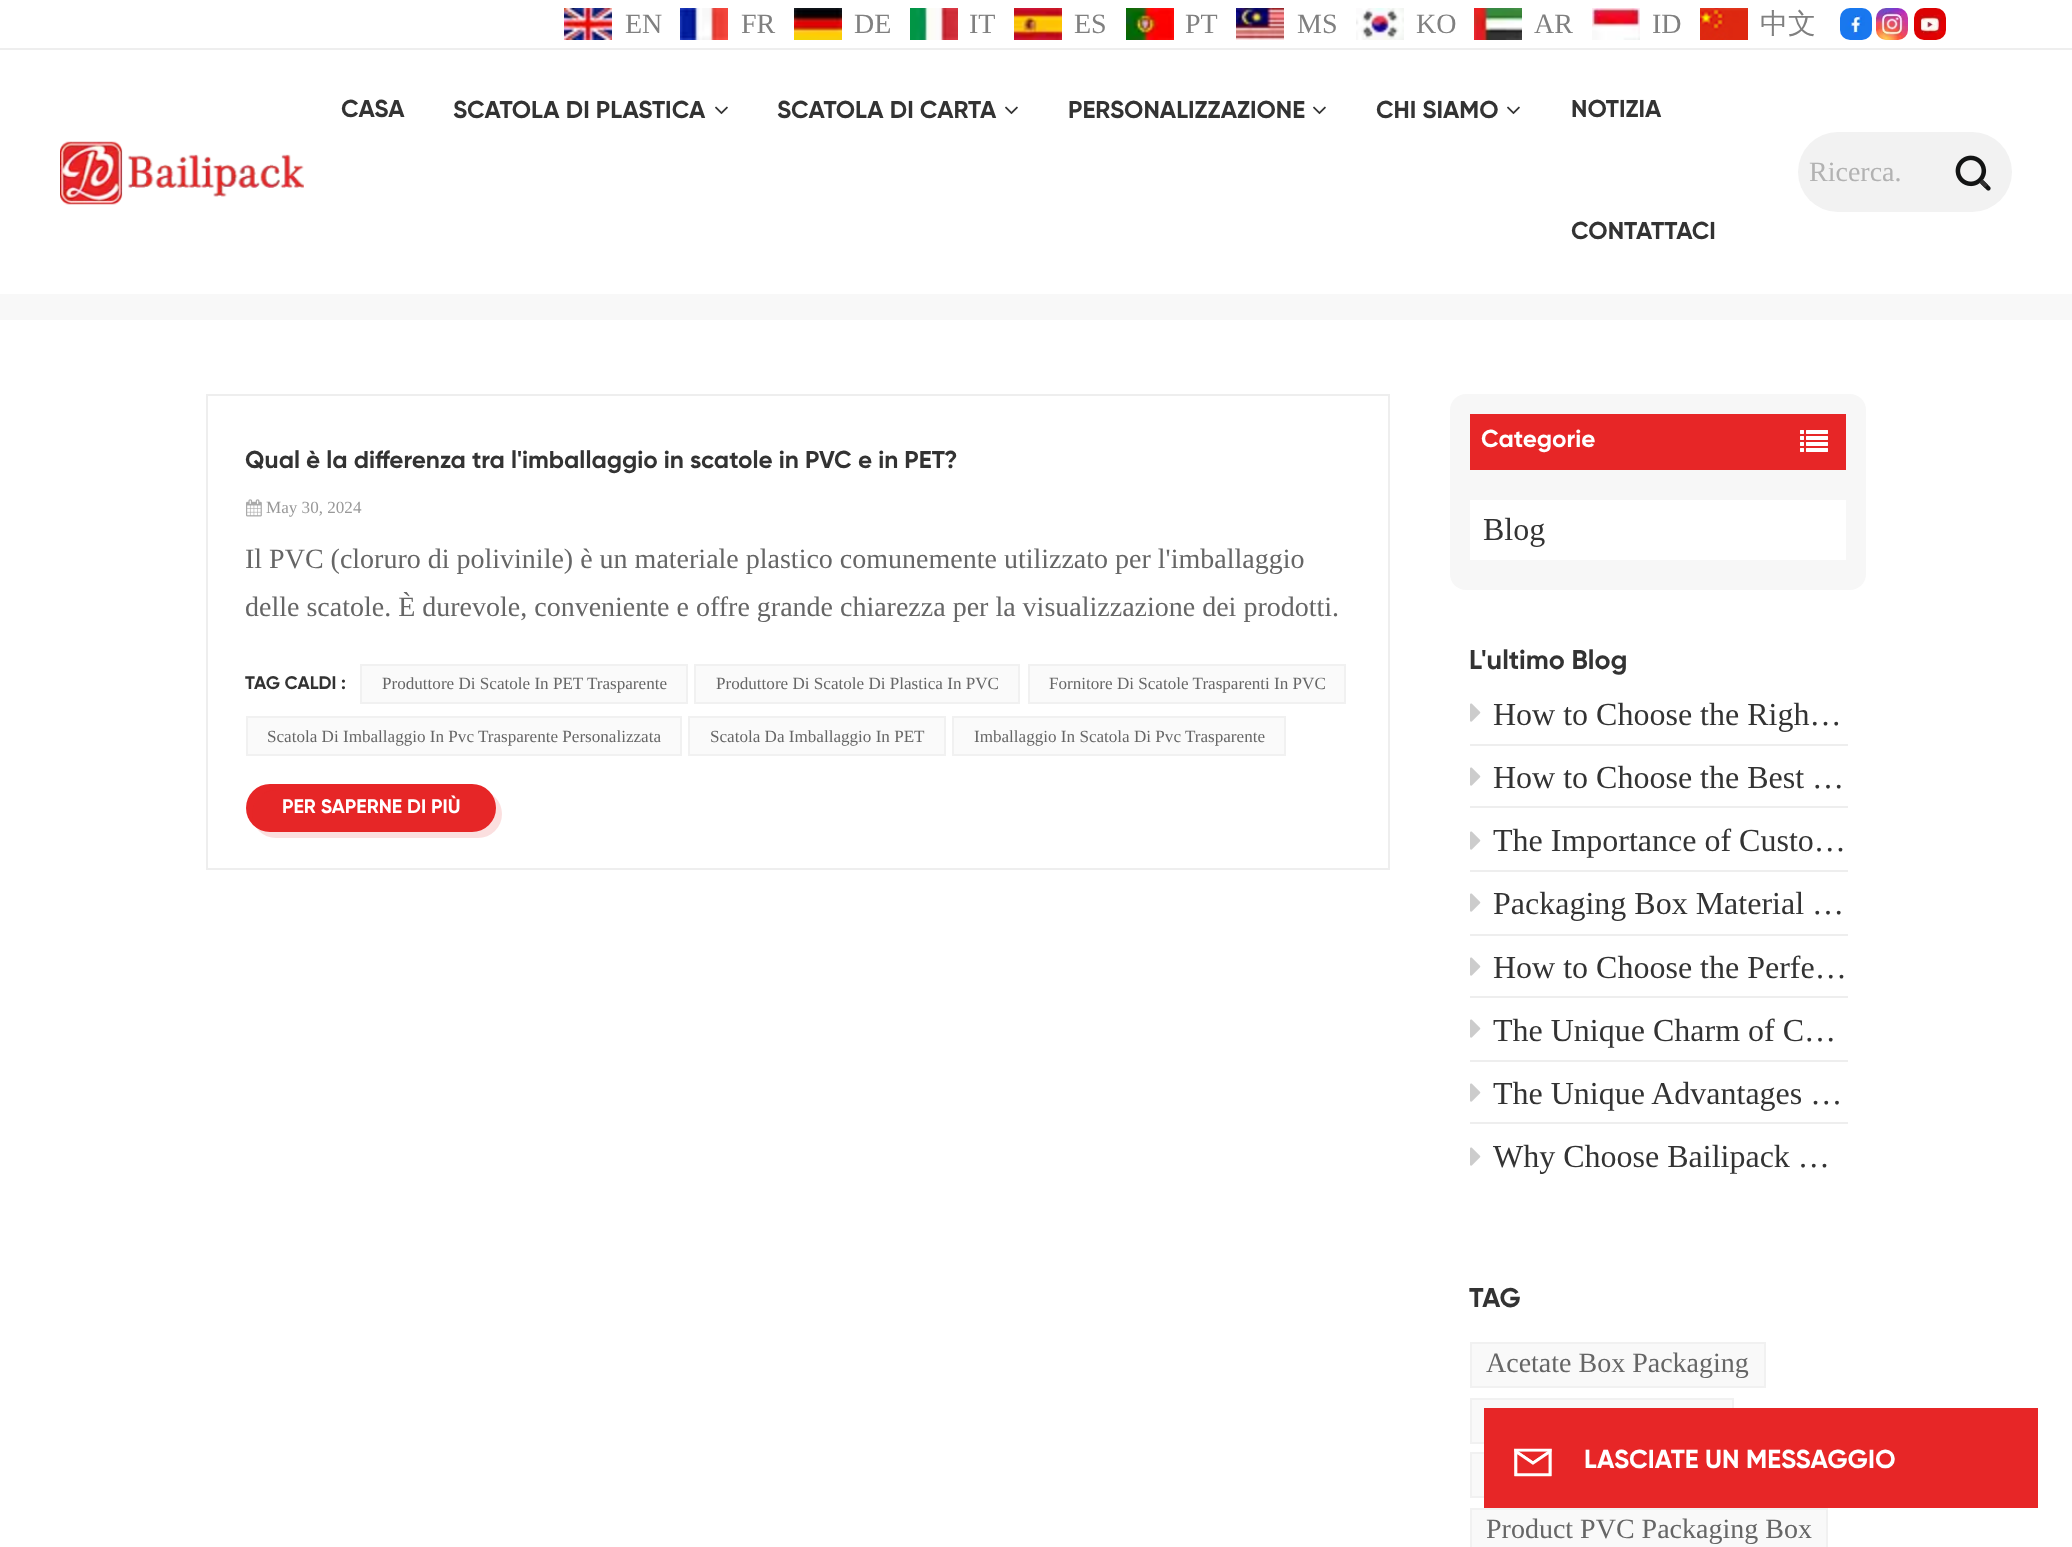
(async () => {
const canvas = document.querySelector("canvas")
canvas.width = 2072
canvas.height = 1547
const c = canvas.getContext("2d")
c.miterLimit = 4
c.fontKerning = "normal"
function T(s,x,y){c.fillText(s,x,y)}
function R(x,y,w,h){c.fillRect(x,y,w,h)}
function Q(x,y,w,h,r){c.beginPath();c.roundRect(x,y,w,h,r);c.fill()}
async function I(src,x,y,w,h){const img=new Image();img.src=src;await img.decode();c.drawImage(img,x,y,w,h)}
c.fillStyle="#fff"
R(0,0,2072,1547)
c.fillStyle="#eee"
R(0,48,2072,2)
await I("1.png",564,8,48,32)
c.font="28px Liberation Serif"
c.fillStyle="#808080"
T("EN",625,33)
await I("2.png",680,8,48,32)
T("FR",741,33)
await I("3.png",794,8,48,32)
T("DE",854,33)
await I("4.png",910,8,48,32)
T("IT",969,33)
await I("5.png",1014,8,48,32)
T("ES",1074,33)
await I("6.png",1126,8,48,32)
T("PT",1185,33)
await I("7.png",1236,8,48,32)
T("MS",1297,33)
await I("8.png",1356,8,48,32)
T("KO",1416,33)
await I("9.png",1474,8,48,32)
T("AR",1534,33)
await I("10.png",1592,8,48,32)
T("ID",1652,33)
await I("11.png",1700,8,48,32)
c.font="500 28px WenQuanYi Zen Hei"
T("中文",1760,33)
await I("12.png",1840,8,32,32)
await I("13.png",1876,8,32,32)
await I("14.png",1914,8,32,32)
await I("15.png",60,141,244,64)
c.font="bold 24.4px Gilroy"
c.fillStyle="#333"
T("CASA",341,117)
T("SCATOLA DI PLASTICA",453,118)
await I("16.png",715,106,13,9)
T("SCATOLA DI CARTA",777,118)
await I("16.png",1005,106,13,9)
T("PERSONALIZZAZIONE",1068,118)
await I("16.png",1313,106,13,9)
T("CHI SIAMO",1376,118)
await I("16.png",1507,106,13,9)
T("NOTIZIA",1571,117)
T("CONTATTACI",1571,239)
c.fillStyle="#f2f2f2"
Q(1798,132,214,80,40)
c.font="28px Liberation Serif"
c.fillStyle="#b2b2b2"
T("Ricerca.",1809,181)
await I("17.png",1955,155,36,36)
c.fillStyle="#f8f8f8"
R(0,294,2072,26)
c.strokeStyle="#eee"
c.lineWidth=2
c.strokeRect(207,395,1182,474)
c.font="bold 24.4px Gilroy"
c.fillStyle="#333"
T("Qual è la differenza tra l'imballaggio in scatole in PVC e in PET?",245,468)
await I("18.png",246,499,16,18)
c.font="17.1px Liberation Serif"
c.fillStyle="#999"
T("May 30, 2024",266,513)
c.font="28px Liberation Serif"
c.fillStyle="#666"
T("Il PVC (cloruro di polivinile) è un materiale plastico comunemente utilizzato per l'imballaggio",245,568)
T("delle scatole. È durevole, conveniente e offre grande chiarezza per la visualizzazione dei prodotti.",245,616)
c.font="bold 18.25px Gilroy"
c.fillStyle="#333"
T("TAG CALDI :",245,689)
c.fillStyle="#fafafa"
c.beginPath()
c.rect(361,665,326,38)
c.fill()
c.strokeStyle="#f1f1f1"
c.stroke()
c.font="17.1px Liberation Serif"
c.fillStyle="#666"
T("Produttore Di Scatole In PET Trasparente",382,689)
c.fillStyle="#fafafa"
c.beginPath()
c.rect(695,665,324,38)
c.fill()
c.stroke()
c.fillStyle="#666"
T("Produttore Di Scatole Di Plastica In PVC",716,689)
c.fillStyle="#fafafa"
c.beginPath()
c.rect(1029,665,316,38)
c.fill()
c.stroke()
c.fillStyle="#666"
T("Fornitore Di Scatole Trasparenti In PVC",1049,689)
c.fillStyle="#fafafa"
c.beginPath()
c.rect(247,717,434,38)
c.fill()
c.stroke()
c.fillStyle="#666"
T("Scatola Di Imballaggio In Pvc Trasparente Personalizzata",267,742)
c.fillStyle="#fafafa"
c.beginPath()
c.rect(689,717,256,38)
c.fill()
c.stroke()
c.fillStyle="#666"
T("Scatola Da Imballaggio In PET",710,742)
c.fillStyle="#fafafa"
c.beginPath()
c.rect(953,717,332,38)
c.fill()
c.stroke()
c.fillStyle="#666"
T("Imballaggio In Scatola Di Pvc Trasparente",974,742)
c.fillStyle="#e72627"
Q(246,784,250,48,24)
c.fillStyle="#e7262726"
Q(252,790,250,48,24)
c.font="bold 19.5px Gilroy"
c.fillStyle="#fff"
T("PER SAPERNE DI PIÙ",282,813)
c.fillStyle="#f7f7f7"
Q(1450,394,416,196,16)
c.fillStyle="#e72627"
R(1470,414,376,56)
c.font="bold 24.4px Gilroy"
c.fillStyle="#fff"
T("Categorie",1481,447)
await I("19.png",1800,430,28,22)
R(1470,500,376,60)
c.font="32px Liberation Serif"
c.fillStyle="#333"
T("Blog",1483,540)
c.font="bold 27px Gilroy"
T("L'ultimo Blog",1469,669)
c.fillStyle="#eee"
R(1470,744,378,2)
await I("20.png",1470,703,11,19)
c.font="32px Liberation Serif"
c.fillStyle="#333"
T("How to Choose the Righ…",1493,725)
c.fillStyle="#eee"
R(1470,806,378,2)
await I("20.png",1470,767,11,19)
c.fillStyle="#333"
T("How to Choose the Best …",1493,788)
c.fillStyle="#eee"
R(1470,870,378,2)
await I("20.png",1470,831,11,19)
c.fillStyle="#333"
T("The Importance of Custo…",1493,851)
c.fillStyle="#eee"
R(1470,934,378,2)
await I("20.png",1470,893,11,19)
c.fillStyle="#333"
T("Packaging Box Material …",1493,914)
c.fillStyle="#eee"
R(1470,996,378,2)
await I("20.png",1470,957,11,19)
c.fillStyle="#333"
T("How to Choose the Perfe…",1493,978)
c.fillStyle="#eee"
R(1470,1060,378,2)
await I("20.png",1470,1019,11,19)
c.fillStyle="#333"
T("The Unique Charm of C…",1493,1041)
c.fillStyle="#eee"
R(1470,1122,378,2)
await I("20.png",1470,1083,11,19)
c.fillStyle="#333"
T("The Unique Advantages …",1493,1104)
await I("20.png",1470,1147,11,19)
T("Why Choose Bailipack …",1493,1167)
c.font="bold 27px Gilroy"
T("TAG",1469,1307)
c.fillStyle="#f9f9f9"
c.beginPath()
c.rect(1471,1343,294,44)
c.fill()
c.stroke()
c.font="28px Liberation Serif"
c.fillStyle="#666"
T("Acetate Box Packaging",1486,1372)
c.fillStyle="#f9f9f9"
c.beginPath()
c.rect(1471,1399,262,44)
c.fill()
c.stroke()
R(1472,1454,12,42)
c.strokeRect(1471,1453,352,44)
c.beginPath()
c.rect(1471,1509,356,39)
c.fill()
c.stroke()
c.fillStyle="#666"
T("Product PVC Packaging Box",1486,1538)
c.fillStyle="#e72627"
R(1484,1408,554,100)
await I("21.png",1514,1448,38,29)
c.font="bold 26px Gilroy"
c.fillStyle="#fff"
T("LASCIATE UN MESSAGGIO",1584,1468)
})()
